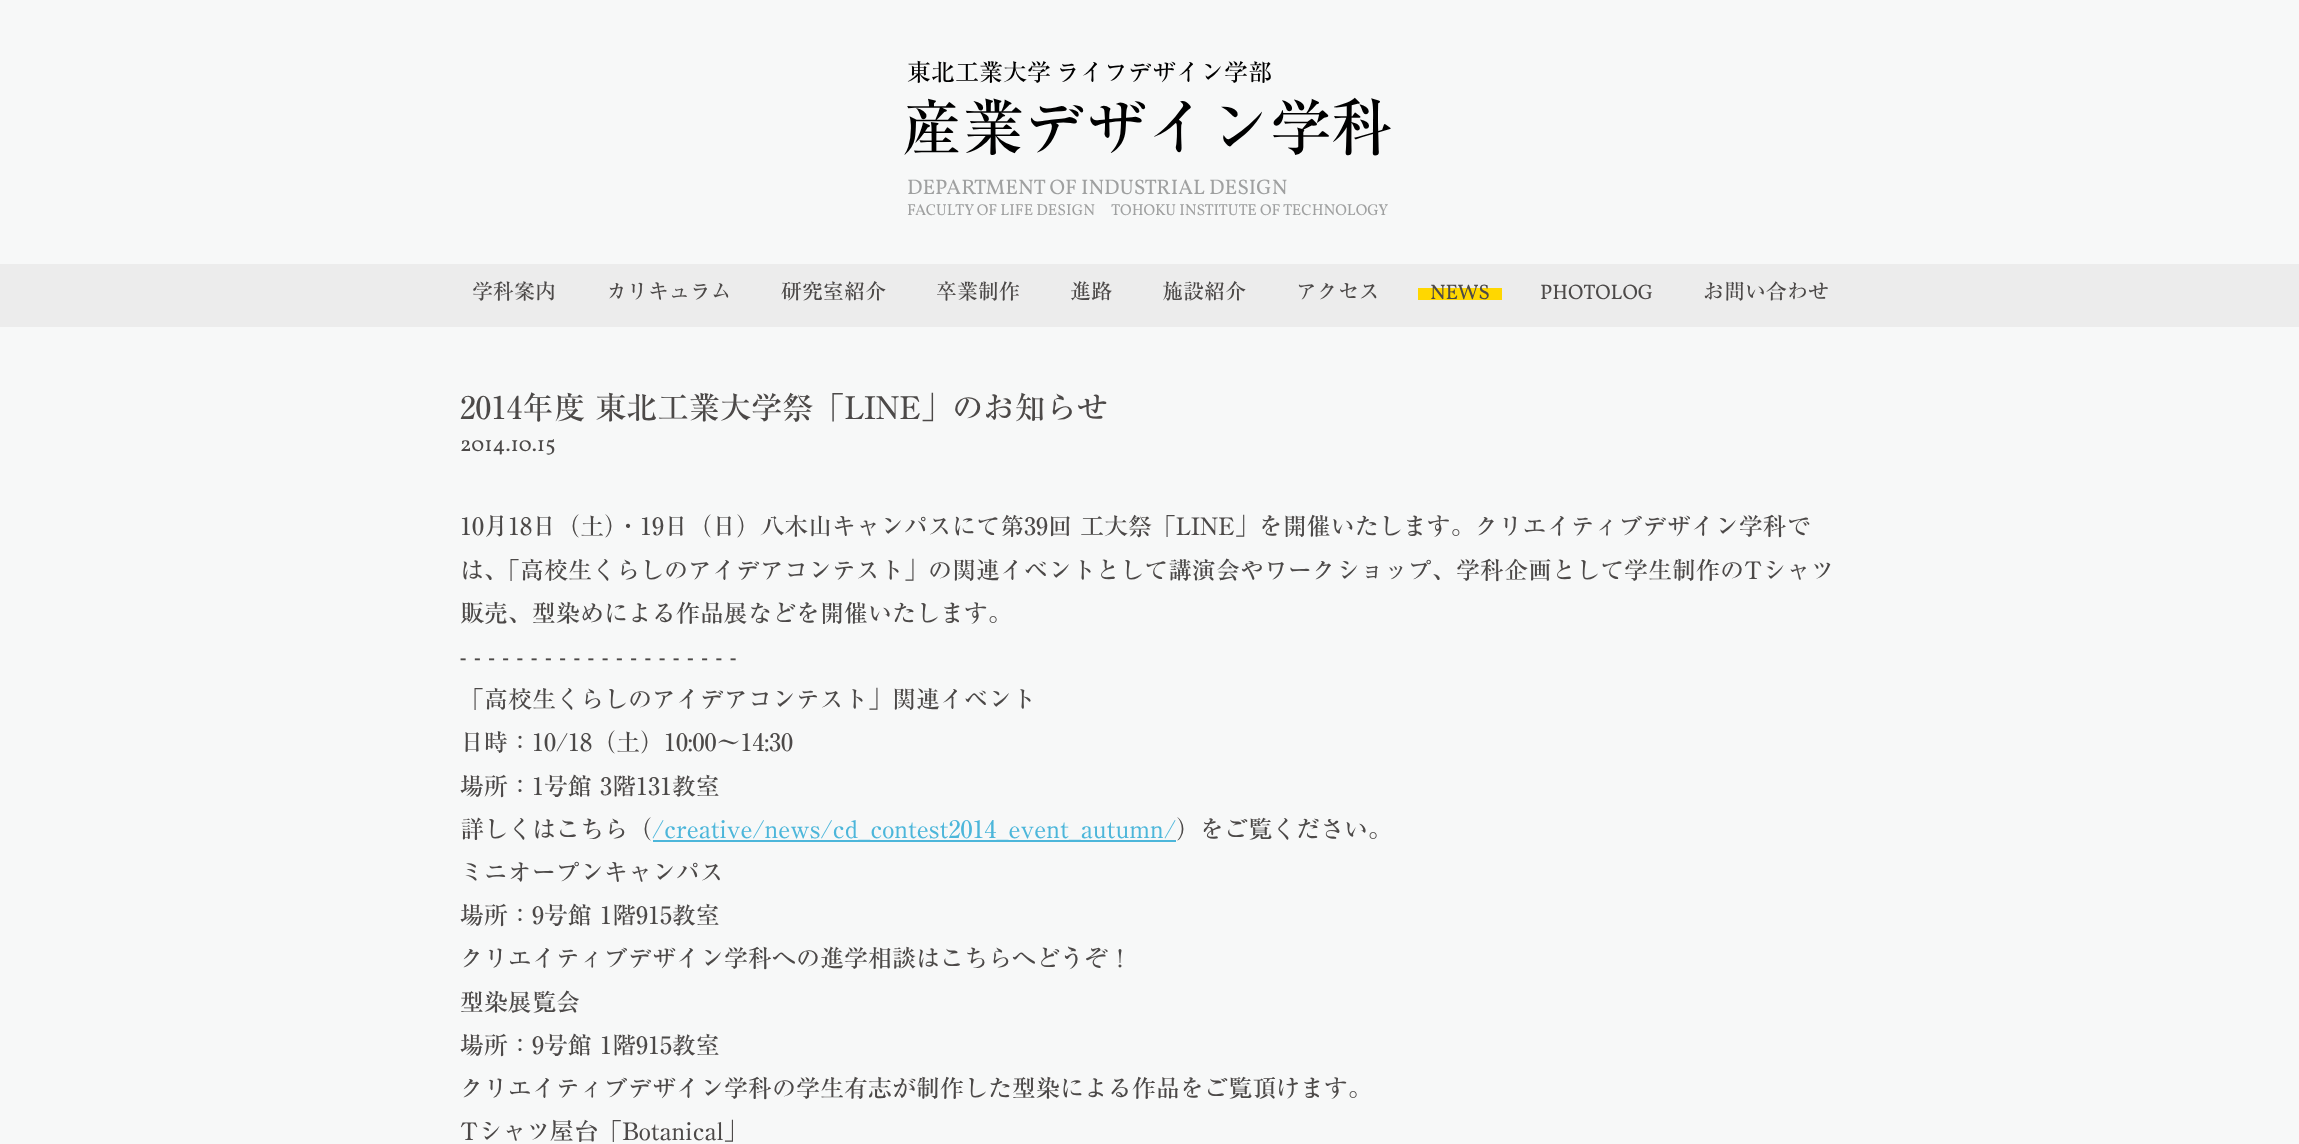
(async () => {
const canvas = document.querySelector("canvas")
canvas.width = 2299
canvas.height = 1144
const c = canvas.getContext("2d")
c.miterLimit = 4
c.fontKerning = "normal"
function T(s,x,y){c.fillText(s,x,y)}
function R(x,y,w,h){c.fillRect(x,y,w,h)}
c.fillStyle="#f7f8f8"
R(0,0,2299,1144)
c.wordSpacing="-3px"
c.font="24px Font"
c.fillStyle="#000"
T("東北工業大学 ライフデザイン学部",907,81)
c.wordSpacing="0px"
c.font="61.5px Font"
T("産業デザイン学科",901,150)
c.font="21.1px Vollkorn"
c.fillStyle="#9fa0a0"
T("DEPARTMENT OF INDUSTRIAL DESIGN",907,194)
c.font="15.8px Vollkorn"
T("FACULTY OF LIFE DESIGN",907,215)
T("TOHOKU INSTITUTE OF TECHNOLOGY",1111,215)
c.fillStyle="#ececec"
R(0,264,2299,63)
c.font="21px Font"
c.fillStyle="#4c4948"
T("学科案内",472,299)
T("カリキュラム",606,299)
T("研究室紹介",781,299)
T("卒業制作",936,299)
T("進路",1070,299)
T("施設紹介",1162,299)
T("アクセス",1296,299)
c.fillStyle="#ffd700"
R(1418,288,84,12)
c.font="21px Vollkorn"
c.fillStyle="#4c4948"
T("NEWS",1430,299)
T("PHOTOLOG",1540,299)
c.font="21px Font"
T("お問い合わせ",1703,299)
c.font="31.2px Font"
T("2014年度 東北工業大学祭「LINE」のお知らせ",460,419)
c.font="21.5px Vollkorn"
T("2014.10.15",460,451)
c.font="24px Font"
T("10月18日（土）・19日（日）八木山キャンパスにて第39回 工大祭「LINE」を開催いたします。クリエイティブデザイン学科で",460,535)
T("は、「高校生くらしのアイデアコンテスト」の関連イベントとして講演会やワークショップ、学科企画として学生制作のTシャツ",460,579)
T("販売、型染めによる作品展などを開催いたします。",460,622)
T("- - - - - - - - - - - - - - - - - - - -",460,665)
T("「高校生くらしのアイデアコンテスト」関連イベント",460,708)
T("日時：10/18（土）10:00〜14:30",460,751)
T("場所：1号館 3階131教室",460,795)
T("詳しくはこちら（",460,838)
c.fillStyle="#4cb6da"
R(653,840,523,2)
T("/creative/news/cd_contest2014_event_autumn/",652,838)
c.fillStyle="#4c4948"
T("）をご覧ください。",1176,838)
T("ミニオープンキャンパス",460,881)
T("場所：9号館 1階915教室",460,924)
T("クリエイティブデザイン学科への進学相談はこちらへどうぞ！",460,967)
T("型染展覧会",460,1011)
T("場所：9号館 1階915教室",460,1054)
T("クリエイティブデザイン学科の学生有志が制作した型染による作品をご覧頂けます。",460,1097)
T("Tシャツ屋台「Botanical」",460,1140)
})()
